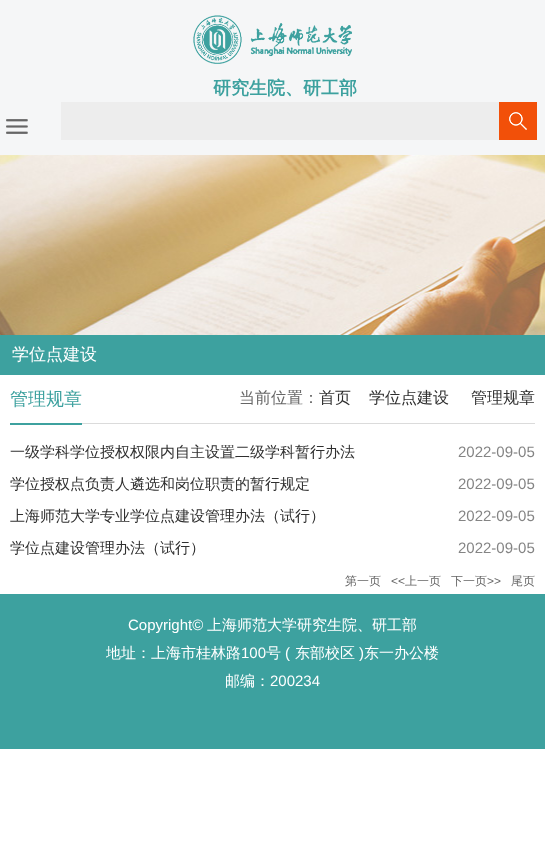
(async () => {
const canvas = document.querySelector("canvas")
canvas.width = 545
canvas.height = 850
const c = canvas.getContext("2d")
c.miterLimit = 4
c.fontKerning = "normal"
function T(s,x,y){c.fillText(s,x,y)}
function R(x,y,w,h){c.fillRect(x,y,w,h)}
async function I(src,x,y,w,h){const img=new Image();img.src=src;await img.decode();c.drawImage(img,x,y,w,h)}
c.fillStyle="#fff"
R(0,0,545,850)
c.fillStyle="#f5f6f7"
R(0,0,545,155)
await I("1.png",193,15,159,49)
c.font="bold 18px WenQuanYi Zen Hei"
c.fillStyle="#3da19f"
T("研究生院、研工部",213,94)
await I("2.png",6,119,22,15)
c.fillStyle="#ededed"
R(61,102,438,38)
c.fillStyle="#f25009"
R(499,102,38,38)
await I("3.png",509,112,18,18)
await I("4.png",0,155,545,180)
c.fillStyle="#3da19f"
R(0,335,545,40)
c.font="500 17px WenQuanYi Zen Hei"
c.fillStyle="#fff"
T("学位点建设",12,360)
c.fillStyle="#dbdbdb"
R(82,423,453,1)
c.fillStyle="#3da19f"
R(10,423,72,2)
c.font="500 18px WenQuanYi Zen Hei"
T("管理规章",10,405)
c.font="500 16px WenQuanYi Zen Hei"
c.fillStyle="#666"
T("当前位置：",239,403)
c.fillStyle="#2f2f2f"
T("首页",319,403)
T("学位点建设",369,403)
T("管理规章",471,403)
c.font="500 15px WenQuanYi Zen Hei"
T("一级学科学位授权权限内自主设置二级学科暂行办法",10,457)
c.font="15px Liberation Sans"
c.fillStyle="#848484"
T("2022-09-05",458,457)
c.font="500 15px WenQuanYi Zen Hei"
c.fillStyle="#2f2f2f"
T("学位授权点负责人遴选和岗位职责的暂行规定",10,489)
c.font="15px Liberation Sans"
c.fillStyle="#848484"
T("2022-09-05",458,489)
c.font="500 15px WenQuanYi Zen Hei"
c.fillStyle="#2f2f2f"
T("上海师范大学专业学位点建设管理办法（试行）",10,521)
c.font="15px Liberation Sans"
c.fillStyle="#848484"
T("2022-09-05",458,521)
c.font="500 15px WenQuanYi Zen Hei"
c.fillStyle="#2f2f2f"
T("学位点建设管理办法（试行）",10,553)
c.font="15px Liberation Sans"
c.fillStyle="#848484"
T("2022-09-05",458,553)
c.font="500 12px WenQuanYi Zen Hei"
c.fillStyle="#666"
T("第一页",345,585)
c.font="12px Liberation Sans"
T("<<",391,585)
c.font="500 12px WenQuanYi Zen Hei"
T("上一页",405,585)
T("下一页",451,585)
c.font="12px Liberation Sans"
T(">>",487,585)
c.font="500 12px WenQuanYi Zen Hei"
T("尾页",511,585)
c.fillStyle="#3da19f"
R(0,594,545,155)
c.font="15px Liberation Sans"
c.fillStyle="#fff"
T("Copyright©",128,630)
c.font="500 15px WenQuanYi Zen Hei"
T("上海师范大学研究生院、研工部",207,630)
T("地址：上海市桂林路",106,658)
c.font="15px Liberation Sans"
T("100",241,658)
c.font="500 15px WenQuanYi Zen Hei"
T("号",266,658)
c.font="15px Liberation Sans"
T("(",285,658)
c.font="500 15px WenQuanYi Zen Hei"
T("东部校区",295,658)
c.font="15px Liberation Sans"
T(")",359,658)
c.font="500 15px WenQuanYi Zen Hei"
T("东一办公楼",364,658)
T("邮编：",225,686)
c.font="15px Liberation Sans"
T("200234",270,686)
})()
